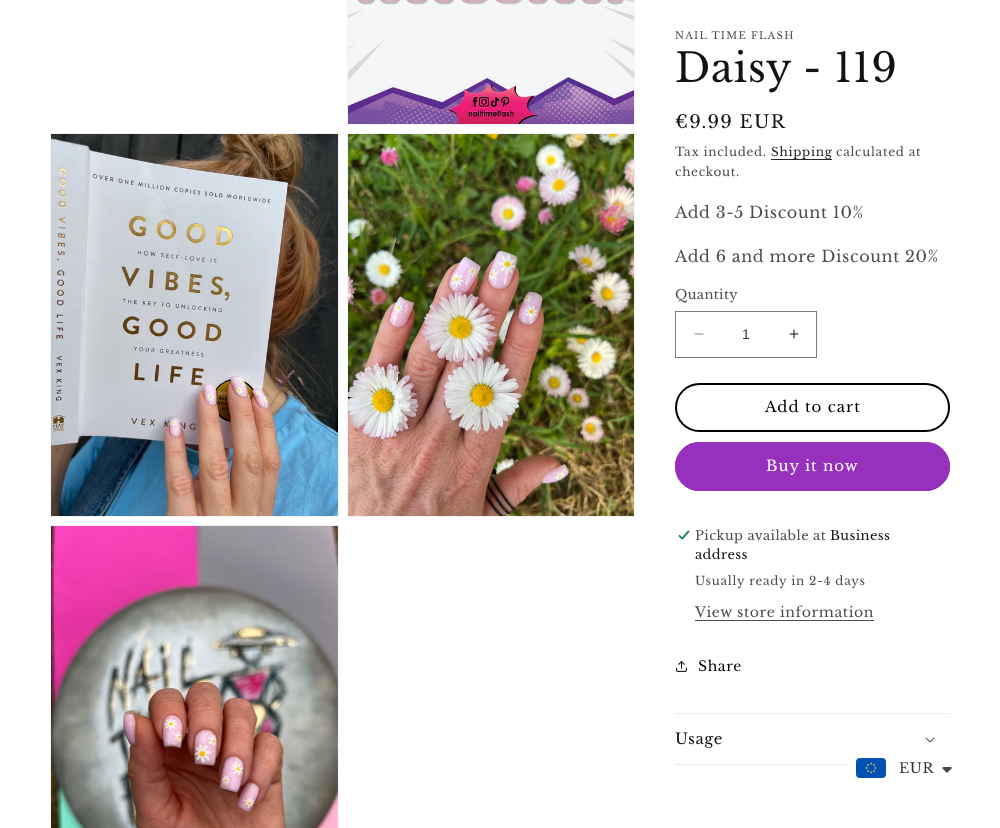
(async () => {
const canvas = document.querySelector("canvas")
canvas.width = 1000
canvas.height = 828
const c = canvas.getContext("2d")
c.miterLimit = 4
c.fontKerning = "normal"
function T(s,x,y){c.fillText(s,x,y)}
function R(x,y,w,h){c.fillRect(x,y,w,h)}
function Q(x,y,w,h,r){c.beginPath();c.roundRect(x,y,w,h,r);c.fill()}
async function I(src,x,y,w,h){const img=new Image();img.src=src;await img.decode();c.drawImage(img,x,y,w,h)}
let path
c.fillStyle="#fff"
R(0,0,1000,828)
c.strokeStyle="#f3f3f3"
c.strokeRect(347.5,-.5,287,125)
await I("1.png",348,0,286,124)
c.strokeRect(50.5,133.5,288,383)
await I("2.png",51,134,287,382)
c.strokeRect(347.5,133.5,287,383)
await I("3.png",348,134,286,382)
c.strokeRect(50.5,525.5,288,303)
await I("4.png",51,526,287,302)
c.letterSpacing="1.25px"
c.font="10px Libre Baskerville"
c.fillStyle="#4d4d4d"
T("NAIL TIME FLASH",675,39)
c.letterSpacing="0.6px"
c.font="40px Libre Baskerville"
c.fillStyle="#121212"
T("Daisy - 119",675,82)
c.letterSpacing="1.25px"
c.font="18px Libre Baskerville"
T("€9.99 EUR",675,128)
c.letterSpacing="0.7px"
c.font="12px Libre Baskerville"
c.fillStyle="#4d4d4d"
T("Tax included.",675,156)
c.fillStyle="#262626"
R(771,159,61,1)
T("Shipping",771,156)
c.fillStyle="#4d4d4d"
T("calculated at",836,156)
T("checkout.",675,176)
c.letterSpacing="0.6px"
c.font="16px Libre Baskerville"
T("Add 3-5 Discount 10%",675,218)
T("Add 6 and more Discount 20%",675,262)
c.letterSpacing="0.4px"
c.font="13px Libre Baskerville"
T("Quantity",675,299)
await I("5.png",694,333,10,2)
await I("6.png",789,329,10,10)
c.strokeStyle="#7d7d7d"
c.strokeRect(675.5,311.5,141,46)
c.letterSpacing="0px"
c.font="14px Liberation Sans"
c.fillStyle="#363636"
T("1",742,339)
c.beginPath()
c.roundRect(676,384,273,47,23.5)
c.strokeStyle="#000"
c.lineWidth=2
c.stroke()
c.letterSpacing="1px"
c.font="15px Libre Baskerville"
c.fillStyle="#000"
T("Add to cart",765,412)
c.fillStyle="#9731bd"
Q(675,442,275,49,24.5)
c.beginPath()
c.roundRect(676,443,273,47,23.5)
c.strokeStyle="#9731bd"
c.stroke()
c.fillStyle="#fff"
T("Buy it now",766,471)
await I("7.png",678,530,12,10)
c.letterSpacing="0.4px"
c.font="13px Libre Baskerville"
c.fillStyle="#4d4d4d"
T("Pickup available at",695,540)
c.fillStyle="#121212"
T("Business",830,540)
T("address",695,559)
c.letterSpacing="0.7px"
c.font="12px Libre Baskerville"
c.fillStyle="#4d4d4d"
T("Usually ready in 2-4 days",695,585)
c.letterSpacing="0.6px"
c.font="14px Libre Baskerville"
T("View store information",695,617)
R(695,620,179,1)
await I("8.png",676,661,11,11)
c.fillStyle="#000"
T("Share",698,671)
c.fillStyle="#ececec"
R(675,713,275,1)
R(675,764,174,1)
c.font="15px Libre Baskerville"
c.fillStyle="#121212"
T("Usage",675,744)
await I("9.png",925,737,10,6)
await I("10.png",856,758,30,20)
c.font="14px Libre Baskerville"
c.fillStyle="#363636"
T("EUR",899,773)
c.fillStyle="#474942"
path = new Path2D("M944 767c-1 0-1.5 .5-2 1l5 5l5-5l-1-1z")
c.fill(path)
})()
